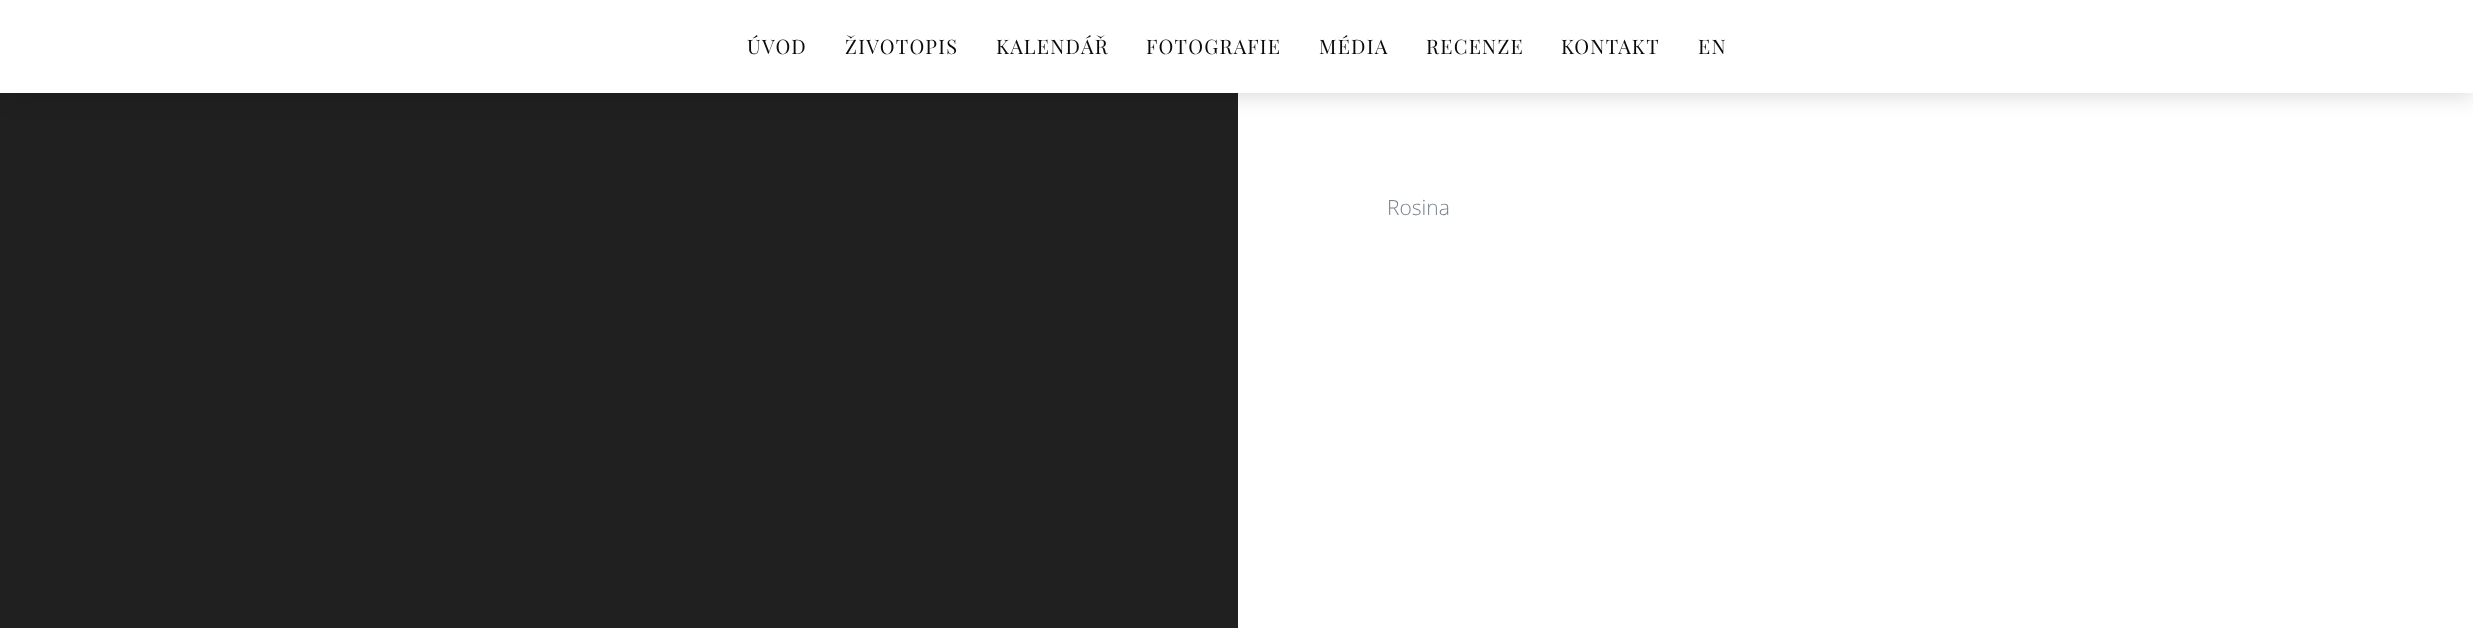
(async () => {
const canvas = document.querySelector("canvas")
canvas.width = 2473
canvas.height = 628
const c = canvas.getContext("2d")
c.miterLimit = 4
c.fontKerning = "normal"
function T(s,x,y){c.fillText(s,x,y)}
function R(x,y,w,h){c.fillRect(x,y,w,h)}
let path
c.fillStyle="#fff"
R(0,0,2473,628)
c.fillStyle="#202020"
R(0,93,1238,535)
c.save()
path = new Path2D("M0 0h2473v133h-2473zm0 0h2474v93h-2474z")
c.clip(path,"evenodd")
c.fillStyle="#0000002b"
c.filter="blur(12.5px)"
c.beginPath()
c.rect(1,1,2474,93)
c.fill()
c.filter="none"
c.restore()
c.letterSpacing="1.25px"
c.font="20px Playfair Display"
c.fillStyle="#0a0a0a"
T("ÚVOD",747,54)
T("ŽIVOTOPIS",845,54)
T("KALENDÁŘ",996,54)
T("FOTOGRAFIE",1146,54)
T("MÉDIA",1319,54)
T("RECENZE",1426,54)
T("KONTAKT",1561,54)
T("EN",1698,54)
c.letterSpacing="0px"
c.font="300 21px Open Sans"
c.fillStyle="#7a828b"
T("Rosina",1387,215)
})()
